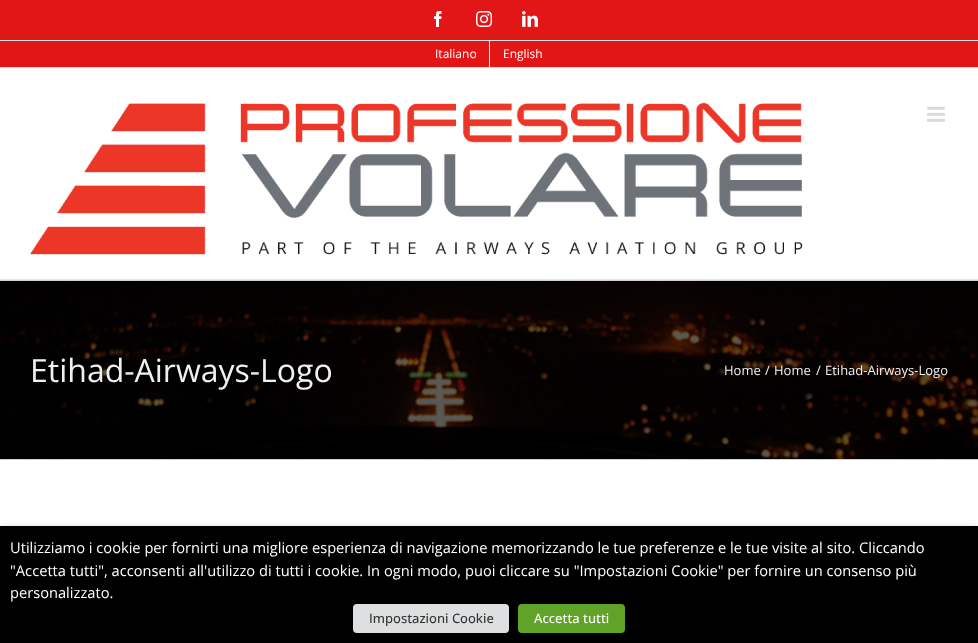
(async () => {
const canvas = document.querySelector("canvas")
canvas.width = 978
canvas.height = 643
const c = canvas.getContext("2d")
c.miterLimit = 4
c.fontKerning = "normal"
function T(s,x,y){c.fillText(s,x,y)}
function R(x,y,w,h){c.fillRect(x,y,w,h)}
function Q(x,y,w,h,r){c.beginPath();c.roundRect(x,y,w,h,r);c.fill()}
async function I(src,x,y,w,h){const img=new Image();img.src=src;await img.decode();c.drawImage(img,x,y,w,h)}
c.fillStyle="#fff"
R(0,0,978,643)
c.fillStyle="#e21616"
R(0,0,978,67)
c.fillStyle="#e5e5e5"
R(0,67,978,1)
R(0,40,978,1)
await I("1.png",434,11,8,16)
await I("2.png",476,11,16,16)
await I("3.png",522,11,16,16)
c.font="12px Open Sans"
c.fillStyle="#fff"
T("Italiano",435,58)
R(489,41,1,26)
T("English",503,58)
c.fillStyle="#e5e5e5"
R(0,279,978,1)
await I("4.png",30,102,773,153)
await I("5.png",927,106,18,16)
await I("6.png",0,281,978,178)
c.fillStyle="#d2d3d4"
R(0,280,978,1)
R(0,459,978,1)
c.font="32px Open Sans"
c.fillStyle="#f0f0f0"
T("Etihad-Airways-Logo",30,382)
c.font="13px Open Sans"
T("Home",724,375)
T("/",765,375)
T("Home",774,375)
T("/",816,375)
T("Etihad-Airways-Logo",825,375)
c.fillStyle="#00000080"
c.filter="blur(5px)"
c.beginPath()
c.rect(0,531,978,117)
c.fill()
c.filter="none"
c.fillStyle="#000"
R(0,526,978,117)
c.font="14.67px Open Sans"
c.fillStyle="#fff"
T("Utilizziamo i cookie per fornirti una migliore esperienza di navigazione memorizzando le tue preferenze e le tue visite al sito. Cliccando",10,553)
T("\"Accetta tutti\", acconsenti all'utilizzo di tutti i cookie. In ogni modo, puoi cliccare su \"Impostazioni Cookie\" per fornire un consenso più",10,576)
T("personalizzato.",10,598)
c.fillStyle="#dedfe0"
Q(353,604,156,29,4)
c.font="500 13px Open Sans"
c.fillStyle="#333"
T("Impostazioni Cookie",369,623)
c.fillStyle="#61a229"
Q(518,604,107,29,4)
c.fillStyle="#fff"
T("Accetta tutti",534,623)
})()
